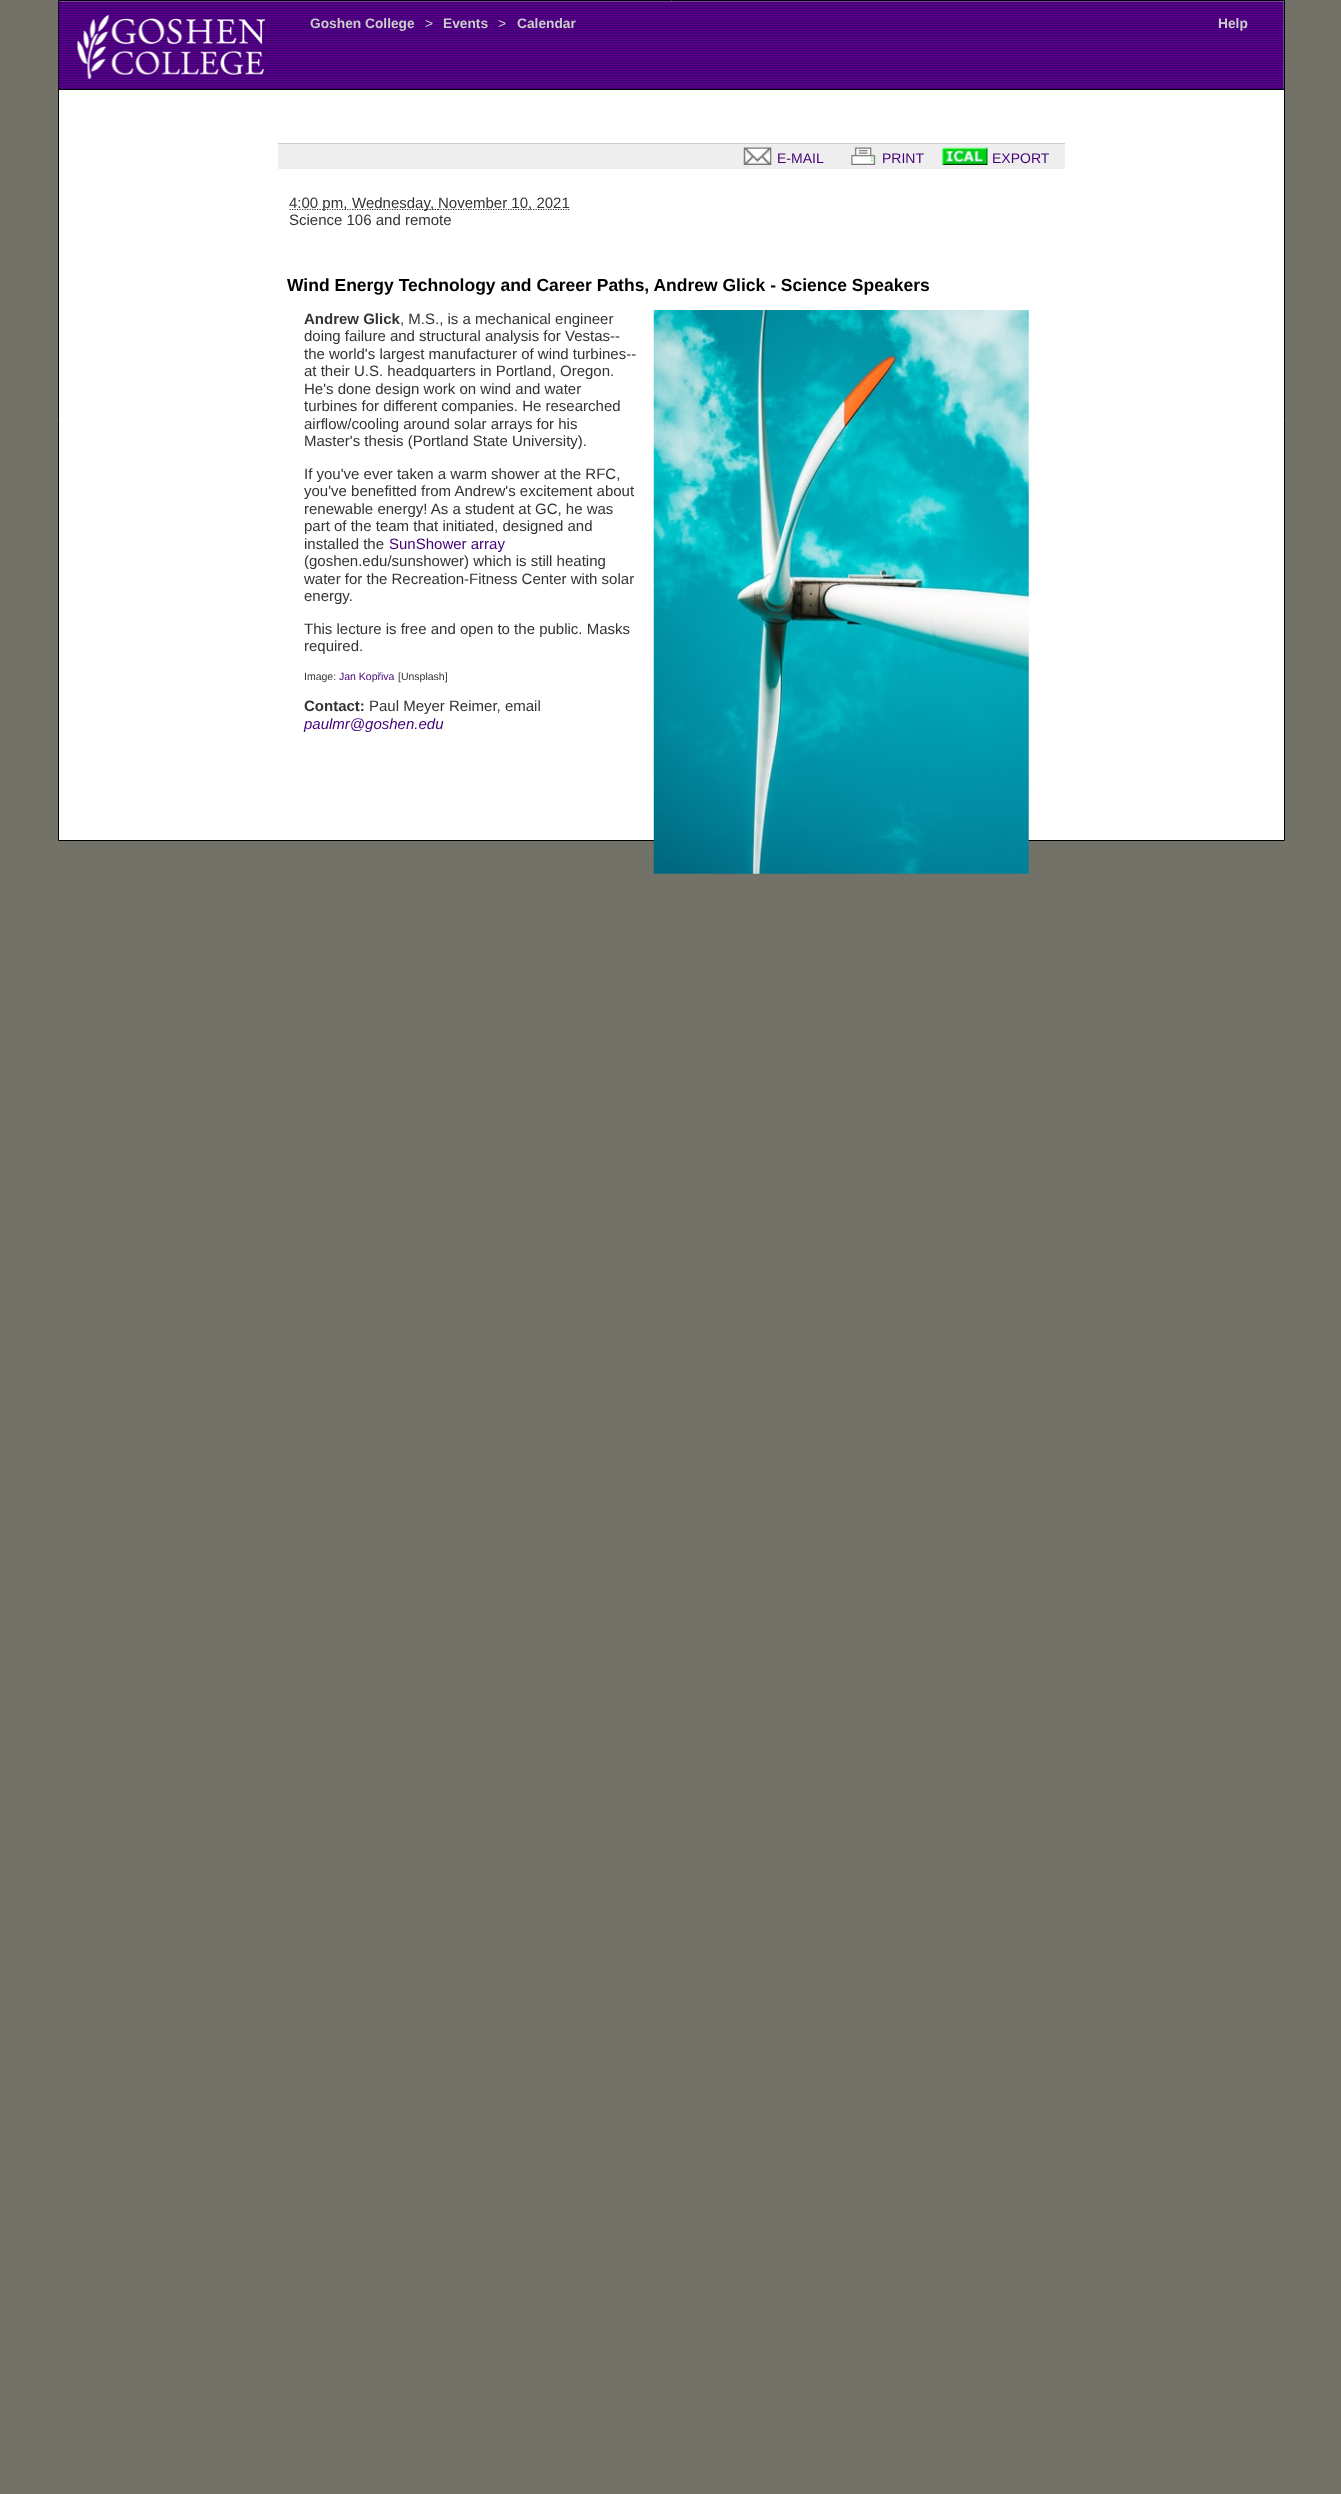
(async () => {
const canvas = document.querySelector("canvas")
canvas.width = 1341
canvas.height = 2494
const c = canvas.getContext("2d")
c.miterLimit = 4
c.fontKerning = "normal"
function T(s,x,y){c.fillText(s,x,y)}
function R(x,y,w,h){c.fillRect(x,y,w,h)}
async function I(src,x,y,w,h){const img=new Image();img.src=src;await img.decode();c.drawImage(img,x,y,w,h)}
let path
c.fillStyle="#737268"
R(0,0,1341,2494)
c.fillStyle="#fff"
c.beginPath()
c.rect(58.5,.5,1226,840)
c.fill()
c.strokeStyle="#000"
c.stroke()
await I("1.png",58,1,1226,89)
c.fillStyle="#000"
R(59,89,1225,1)
await I("2.png",77,15,188,64)
c.font="bold 13.75px Liberation Sans"
c.fillStyle="#ccc"
T("Goshen College",310,28)
c.font="13.75px Liberation Sans"
T(">",425,28)
c.font="bold 13.75px Liberation Sans"
T("Events",443,28)
c.font="13.75px Liberation Sans"
T(">",498,28)
c.font="bold 13.75px Liberation Sans"
T("Calendar",517,28)
T("Help",1218,28)
c.fillStyle="#eee"
R(278,144,787,25)
c.fillStyle="#ccc"
R(278,143,787,1)
await I("3.png",743,147,29,18)
c.font="14px Liberation Sans"
c.fillStyle="#407"
T("E-MAIL",777,163)
await I("4.png",851,147,25,18)
T("PRINT",882,163)
await I("5.png",942,147,46,18)
T("EXPORT",992,163)
path = new Path2D("M289.5 209.5h62.5")
c.strokeStyle="#333"
c.lineWidth=1.2
c.setLineDash([1.25,1.25])
c.stroke(path)
c.font="15px Liberation Sans"
c.fillStyle="#333"
T("4:00 pm,",289,208)
path = new Path2D("M352 209.5h77.5")
c.stroke(path)
T("Wednesday",352,208)
path = new Path2D("M429.5 209.5h1.5m1 0h1.5m1 0h1.5m1 0h1")
c.setLineDash([])
c.stroke(path)
T(",",430,208)
path = new Path2D("M438 209.5h132")
c.setLineDash([1.25,1.25])
c.stroke(path)
T("November 10, 2021",438,208)
T("Science 106 and remote",289,225)
c.font="bold 17.5px Liberation Sans"
c.fillStyle="#000"
T("Wind Energy Technology and Career Paths, Andrew Glick - Science Speakers",287,291)
c.font="bold 15px Liberation Sans"
c.fillStyle="#333"
T("Andrew Glick",304,324)
c.font="15px Liberation Sans"
T(", M.S., is a mechanical engineer",400,324)
await I("6.png",653,310,376,564)
T("doing failure and structural analysis for Vestas--",304,341)
T("the world's largest manufacturer of wind turbines--",304,359)
T("at their U.S. headquarters in Portland, Oregon.",304,376)
T("He's done design work on wind and water",304,394)
T("turbines for different companies. He researched",304,411)
T("airflow/cooling around solar arrays for his",304,429)
T("Master's thesis (Portland State University).",304,446)
T("If you've ever taken a warm shower at the RFC,",304,479)
T("you've benefitted from Andrew's excitement about",304,496)
T("renewable energy! As a student at GC, he was",304,514)
T("part of the team that initiated, designed and",304,531)
T("installed the",304,549)
c.fillStyle="#407"
T("SunShower array",389,549)
c.fillStyle="#333"
T("(goshen.edu/sunshower) which is still heating",304,566)
T("water for the Recreation-Fitness Center with solar",304,584)
T("energy.",304,601)
T("This lecture is free and open to the public. Masks",304,634)
T("required.",304,651)
c.font="10.5px Liberation Sans"
T("Image:",304,680)
c.fillStyle="#407"
T("Jan Kopřiva",339,680)
c.fillStyle="#333"
T("[Unsplash]",398,680)
c.font="bold 15px Liberation Sans"
T("Contact:",304,711)
c.font="15px Liberation Sans"
T("Paul Meyer Reimer, email",369,711)
c.font="italic 15px Liberation Sans"
c.fillStyle="#407"
T("paulmr@goshen.edu",304,729)
})()
